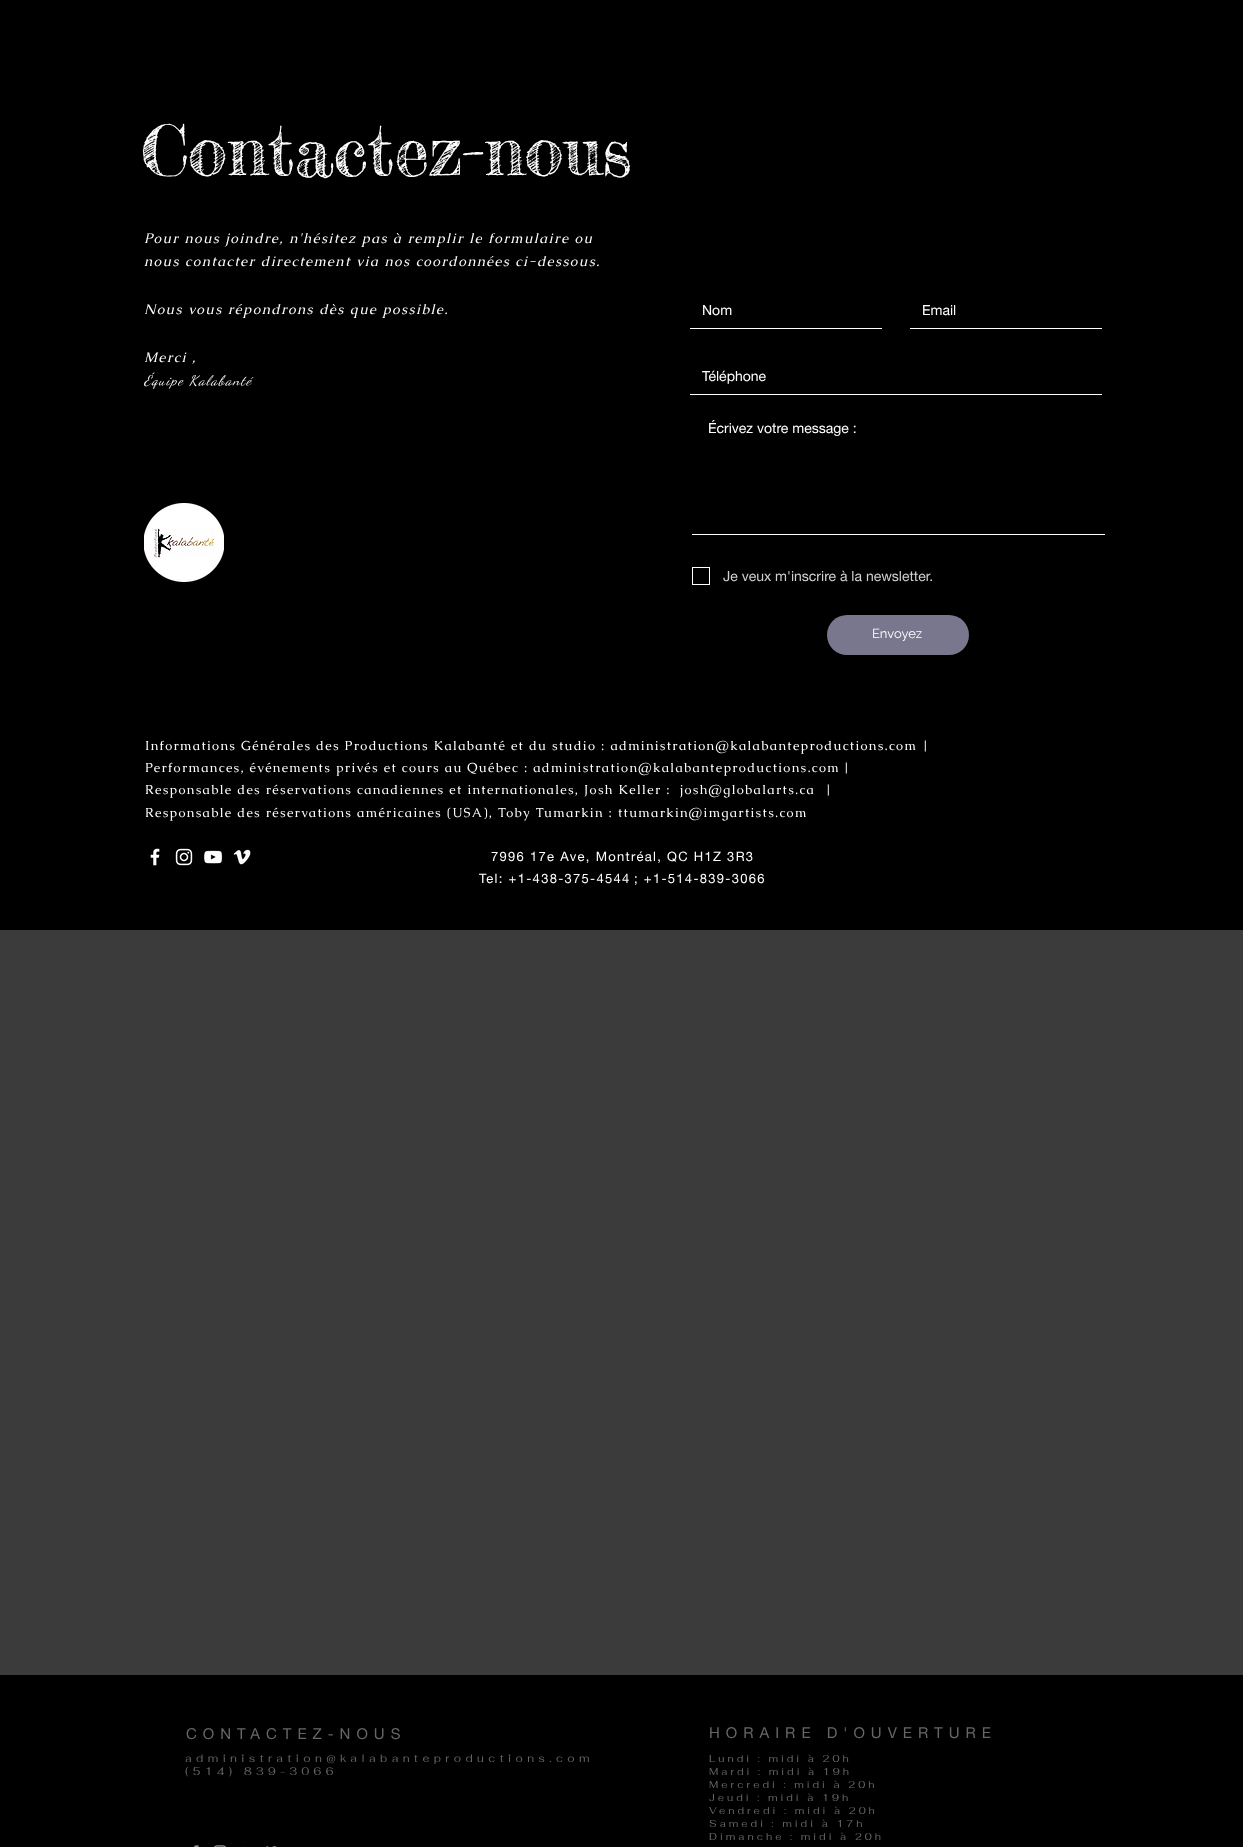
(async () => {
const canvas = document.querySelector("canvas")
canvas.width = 1243
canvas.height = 1847
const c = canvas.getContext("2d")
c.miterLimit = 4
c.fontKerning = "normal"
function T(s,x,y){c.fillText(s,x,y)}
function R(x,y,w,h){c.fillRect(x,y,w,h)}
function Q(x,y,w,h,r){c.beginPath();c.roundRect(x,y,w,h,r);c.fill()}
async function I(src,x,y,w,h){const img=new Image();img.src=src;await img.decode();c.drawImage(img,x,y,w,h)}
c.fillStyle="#3b3b3b"
R(0,0,1243,1847)
c.fillStyle="#000"
R(0,0,1243,930)
c.font="70px Fredericka the Great"
c.fillStyle="#fff"
T("Contactez-nous",141,176)
c.letterSpacing="1.4px"
c.font="italic 14px Caudex"
T("Pour nous joindre, n'hésitez pas à remplir le formulaire ou",144,243)
T("nous contacter directement via nos coordonnées ci-dessous.",144,266)
T("Nous vous répondrons dès que possible.",144,314)
T("Merci ,",144,362)
c.font="italic 14px Dancing Script"
T("Équipe Kalabanté",144,385)
R(690,328,192,1)
c.letterSpacing="0px"
c.font="14px helvetica neue"
T("Nom",702,315)
R(910,328,192,1)
T("Email",922,315)
R(690,394,412,1)
T("Téléphone",702,381)
R(692,534,413,1)
T("Écrivez votre message :",708,433)
c.strokeStyle="#fff"
c.strokeRect(692.5,567.5,17,17)
c.fillStyle="#d1d1d1"
T("Je veux m'inscrire à la newsletter.",723,581)
c.fillStyle="#78778d"
Q(827,615,142,40,20)
c.font="13px Raleway"
c.fillStyle="#fff"
T("Envoyez",872,638)
await I("1.png",144,503,80,79)
c.letterSpacing="1.3px"
c.font="13px Caudex"
T("Informations Générales des Productions Kalabanté et du studio : administration@kalabanteproductions.com |",145,750)
T("Performances, événements privés et cours au Québec : administration@kalabanteproductions.com",145,772)
c.letterSpacing="0px"
T("|",843,772)
c.letterSpacing="1.3px"
T("Responsable des réservations canadiennes et internationales, Josh Keller :",145,794)
T("josh@globalarts.ca",680,794)
T("|",825,794)
T("Responsable des réservations américaines (USA), Toby Tumarkin : ttumarkin@imgartists.com",145,817)
c.font="13px helvetica neue"
T("7996 17e Ave, Montréal, QC H1Z 3R3",491,861)
T("Tel: +1-438-375-4544",479,883)
T("; +1-514-839-3066",634,883)
await I("2.png",150,848,10,18)
await I("3.png",175,848,18,18)
await I("4.png",204,850,19,14)
await I("5.png",233,849,18,16)
c.fillStyle="#000"
R(0,1675,1243,172)
c.letterSpacing="6px"
c.font="15px helvetica neue"
c.fillStyle="#666"
T("CONTACTEZ-NOUS",186,1739)
T("HORAIRE D'OUVERTURE",709,1738)
c.letterSpacing="4.4px"
c.font="11px Fahkwang"
T("administration@kalabanteproductions.com",185,1762)
T("(514) 839-3066",185,1775)
c.letterSpacing="3px"
c.font="10px Fahkwang"
T("Lundi : midi à 20h",709,1762)
T("Mardi : midi à 19h",709,1775)
T("Mercredi : midi à 20h",709,1788)
T("Jeudi : midi à 19h",709,1801)
T("Vendredi : midi à 20h",709,1814)
T("Samedi : midi à 17h",709,1827)
T("Dimanche : midi à 20h",709,1840)
await I("6.png",193,1845,6,2)
await I("7.png",214,1845,12,2)
await I("8.png",243,1846,4,1)
await I("9.png",266,1846,11,1)
})()
